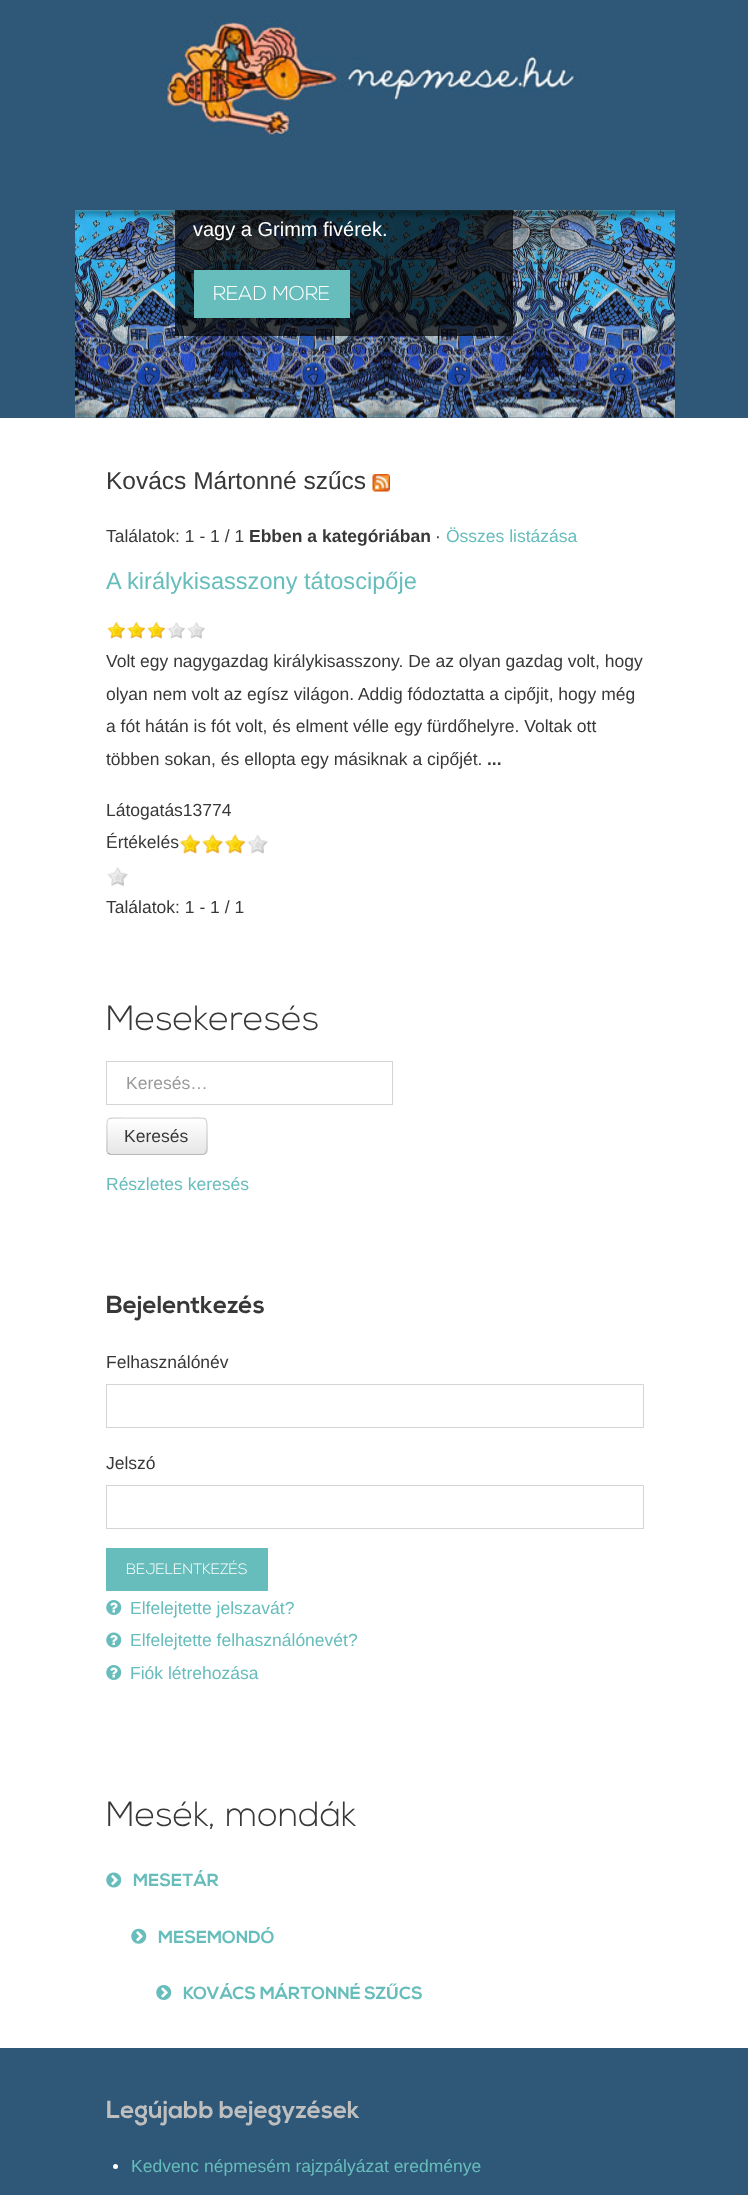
(async () => {
const canvas = document.querySelector("canvas")
canvas.width = 748
canvas.height = 2195
const c = canvas.getContext("2d")
c.miterLimit = 4
c.fontKerning = "normal"
function T(s,x,y){c.fillText(s,x,y)}
function R(x,y,w,h){c.fillRect(x,y,w,h)}
function Q(x,y,w,h,r){c.beginPath();c.roundRect(x,y,w,h,r);c.fill()}
async function I(src,x,y,w,h){const img=new Image();img.src=src;await img.decode();c.drawImage(img,x,y,w,h)}
let gradient, path
c.fillStyle="#fff"
R(0,0,748,2195)
c.fillStyle="#2f5878"
R(0,0,748,418)
await I("1.png",162,19,419,120)
await I("2.png",75,210,600,208)
c.fillStyle="#000000b3"
R(175,210,338,126)
c.font="20px Liberation Sans"
c.fillStyle="#fff"
T("vagy a Grimm fivérek.",193,236)
c.fillStyle="#66bdbb"
R(194,270,156,48)
c.font="300 20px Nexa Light"
c.fillStyle="#fff"
T("READ MORE",213,300)
c.font="24.5px Liberation Sans"
c.fillStyle="#383838"
T("Kovács Mártonné szűcs",106,489)
await I("3.png",372,474,18,18)
c.font="17.5px Liberation Sans"
T("Találatok: 1 - 1 / 1",106,542)
c.font="bold 17.5px Liberation Sans"
T("Ebben a kategóriában",249,542)
c.font="17.5px Liberation Sans"
T("·",435,542)
c.fillStyle="#66bdbb"
T("Összes listázása",446,542)
c.font="23.6px Liberation Sans"
T("A királykisasszony tátoscipője",106,589)
await I("4.png",107,621,18,18)
await I("4.png",127,621,18,18)
await I("4.png",147,621,18,18)
await I("5.png",167,622,18,17)
await I("5.png",187,622,18,17)
c.font="17.5px Liberation Sans"
c.fillStyle="#383838"
T("Volt egy nagygazdag királykisasszony. De az olyan gazdag volt, hogy",106,667)
T("olyan nem volt az egísz világon. Addig fódoztatta a cipőjit, hogy még",106,700)
T("a fót hátán is fót volt, és elment vélle egy fürdőhelyre. Voltak ott",106,732)
T("többen sokan, és ellopta egy másiknak a cipőjét.",106,765)
c.font="bold 17.5px Liberation Sans"
T("...",487,765)
c.font="17.5px Liberation Sans"
T("Látogatás13774",106,816)
T("Értékelés",106,848)
await I("6.png",180,834,20,20)
await I("7.png",202,834,21,20)
await I("6.png",225,834,20,20)
await I("8.png",247,835,21,19)
await I("9.png",107,867,21,20)
T("Találatok: 1 - 1 / 1",106,913)
c.font="300 35px Nexa Light"
T("Mesekeresés",106,1030)
c.strokeStyle="#d5d5d5"
c.strokeRect(106.5,1061.5,286,43)
c.font="17.5px Liberation Sans"
c.fillStyle="#999"
T("Keresés…",126,1089)
c.fillStyle="#f5f5f5"
Q(106,1118,102,37,5)
c.save()
c.beginPath()
c.roundRect(106,1118,102,37,5)
c.clip()
gradient = c.createLinearGradient(157,1119,157,1154)
gradient.addColorStop(0,"#fff")
gradient.addColorStop(1,"#e6e6e6")
c.fillStyle = gradient
R(106,1119,102,35)
c.restore()
path = new Path2D("M205.5 1153c-.5 1-2 1.5-3 1.5h-91.5c-1 0-2-.5-3-1.5")
c.strokeStyle="#00000040"
c.lineWidth=1.2
c.stroke(path)
path = new Path2D("M108 1153c-2-2-1-5-1-7.5v-9.5c0-21-3-18 19.5-18h61c22 0 19.5-3 19.5 18v9.5c0 2.5 .5 5.5-1.5 7.5")
c.strokeStyle="#00000026"
c.stroke(path)
c.fillStyle="#383838"
T("Keresés",124,1142)
c.fillStyle="#66bdbb"
T("Részletes keresés",106,1190)
c.font="bold 24.5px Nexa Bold"
c.fillStyle="#383838"
T("Bejelentkezés",106,1313)
c.font="17.5px Liberation Sans"
T("Felhasználónév",106,1368)
c.strokeStyle="#d5d5d5"
c.lineWidth=1
c.strokeRect(106.5,1384.5,537,43)
T("Jelszó",106,1469)
c.strokeRect(106.5,1485.5,537,43)
c.fillStyle="#66bdbb"
R(106,1548,162,43)
c.font="300 15px Nexa Light"
c.fillStyle="#fff"
T("BEJELENTKEZÉS",126,1574)
await I("10.png",106,1600,16,15)
c.font="17.5px Liberation Sans"
c.fillStyle="#66bdbb"
T("Elfelejtette jelszavát?",130,1614)
await I("11.png",106,1632,16,16)
T("Elfelejtette felhasználónevét?",130,1646)
await I("10.png",106,1665,16,15)
T("Fiók létrehozása",130,1679)
c.font="300 35px Nexa Light"
c.fillStyle="#383838"
T("Mesék, mondák",106,1826)
await I("12.png",106,1872,16,16)
c.font="bold 17.5px Nexa Bold"
c.fillStyle="#66bdbb"
T("MESETÁR",133,1886)
await I("13.png",131,1928,16,16)
T("MESEMONDÓ",158,1943)
await I("14.png",156,1985,16,15)
T("KOVÁCS MÁRTONNÉ SZ",183,1999)
c.font="bold 17.5px Liberation Sans"
T("Ű",386,1999)
c.font="bold 17.5px Nexa Bold"
T("CS",399,1999)
c.fillStyle="#2f5878"
R(0,2048,748,147)
c.font="bold 24.5px Nexa Bold"
c.fillStyle="#bfbfbf"
T("Legújabb bejegyzések",106,2118)
c.fillStyle="#fff"
c.beginPath()
c.arc(115.5,2166.5,2.5,0,7)
c.fill()
c.font="17.5px Liberation Sans"
c.fillStyle="#66bdbb"
T("Kedvenc népmesém rajzpályázat eredménye",131,2172)
})()
